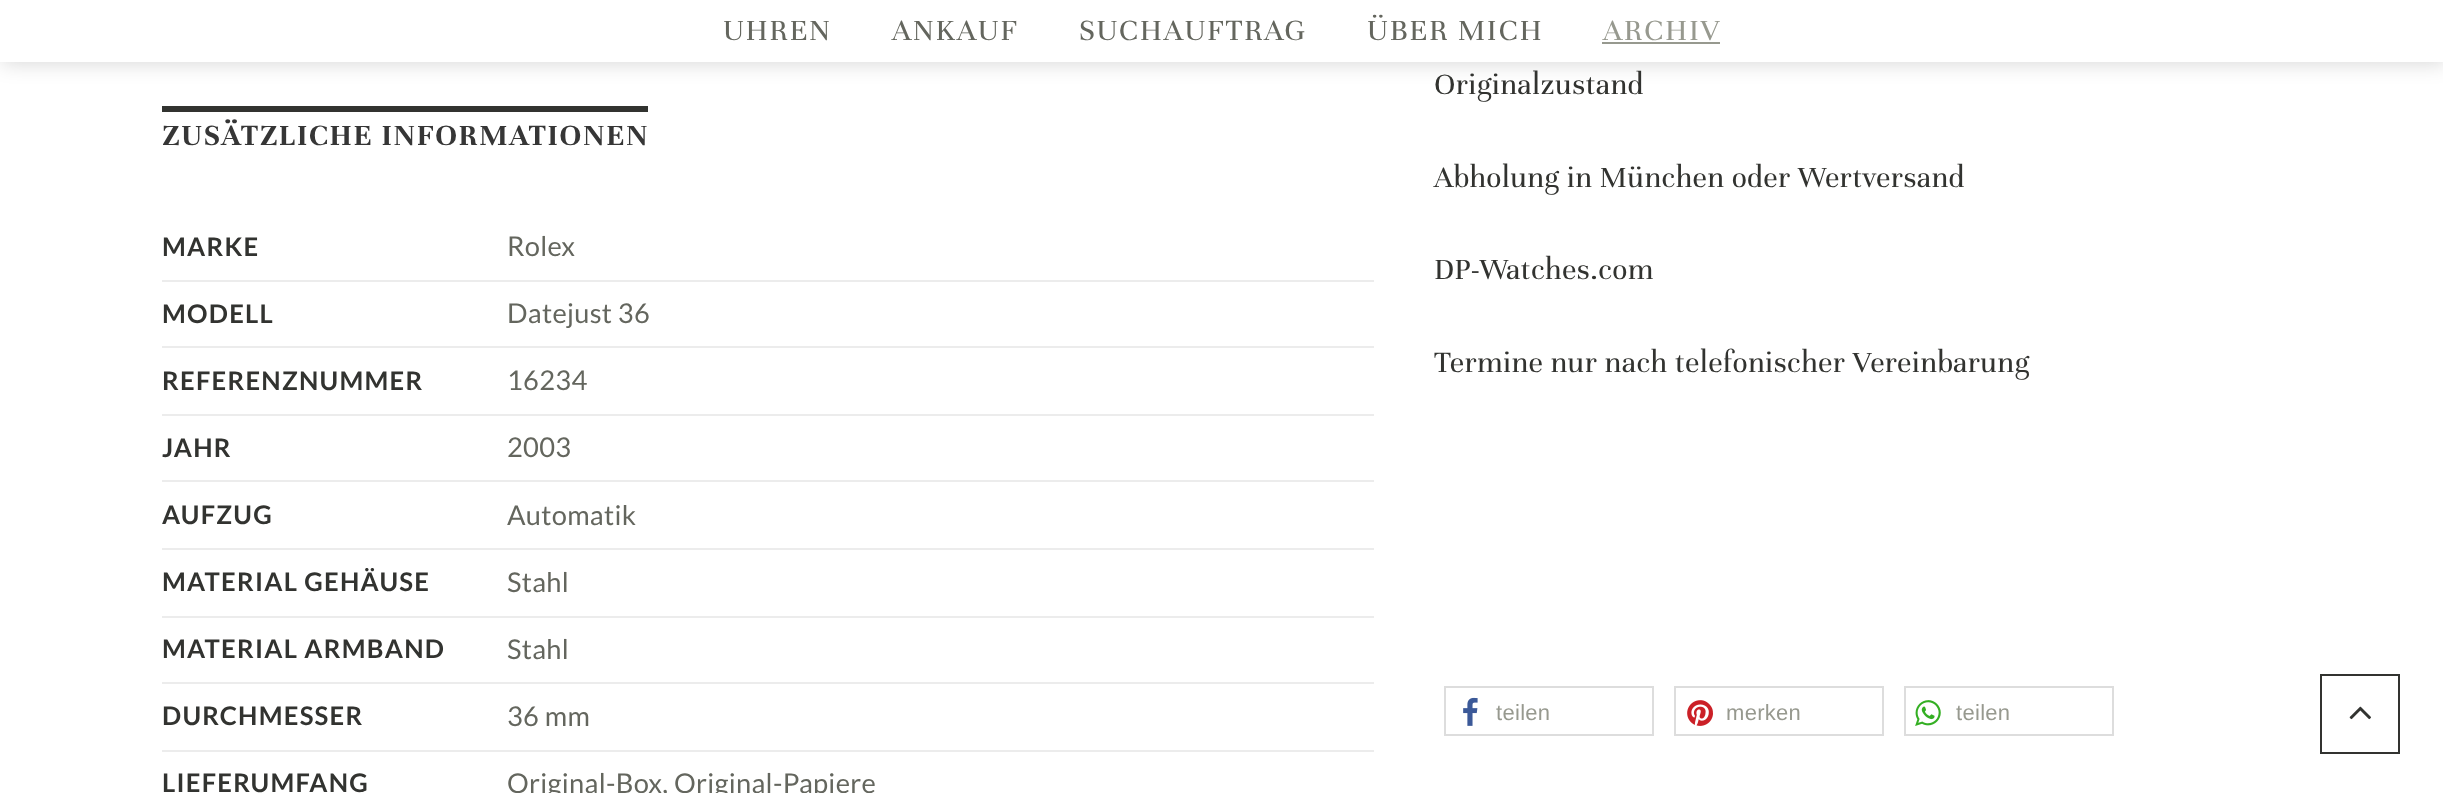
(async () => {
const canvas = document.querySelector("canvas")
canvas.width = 2443
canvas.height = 793
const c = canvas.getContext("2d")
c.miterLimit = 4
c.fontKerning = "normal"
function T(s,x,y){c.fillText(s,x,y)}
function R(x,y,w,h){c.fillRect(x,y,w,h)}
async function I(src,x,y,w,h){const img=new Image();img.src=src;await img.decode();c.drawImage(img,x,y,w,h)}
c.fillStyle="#fff"
R(0,0,2443,793)
c.fillStyle="#00000026"
c.filter="blur(10px)"
c.beginPath()
c.rect(2,2,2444,62)
c.fill()
c.filter="none"
c.fillStyle="#fff"
R(0,0,2443,62)
c.letterSpacing="1.6px"
c.font="32px Unna"
c.fillStyle="#64665e"
T("UHREN",723,40)
T("ANKAUF",892,40)
T("SUCHAUFTRAG",1079,40)
T("ÜBER MICH",1367,40)
c.fillStyle="#97998f"
T("ARCHIV",1603,40)
R(1602,42,118,2)
c.fillStyle="#323330"
R(162,106,486,6)
c.font="bold 32px Unna"
c.fillStyle="#363636"
T("ZUSÄTZLICHE INFORMATIONEN",162,145)
c.fillStyle="#ececec"
R(162,280,1212,2)
c.letterSpacing="1.25px"
c.font="bold 25.6px Lato"
c.fillStyle="#323330"
T("MARKE",162,256)
c.letterSpacing="0.3px"
c.font="27.25px Lato"
c.fillStyle="#64665e"
T("Rolex",507,256)
c.fillStyle="#ececec"
R(162,346,1212,2)
c.letterSpacing="1.25px"
c.font="bold 25.6px Lato"
c.fillStyle="#323330"
T("MODELL",162,323)
c.letterSpacing="0.3px"
c.font="27.25px Lato"
c.fillStyle="#64665e"
T("Datejust 36",507,323)
c.fillStyle="#ececec"
R(162,414,1212,2)
c.letterSpacing="1.25px"
c.font="bold 25.6px Lato"
c.fillStyle="#323330"
T("REFERENZNUMMER",162,390)
c.letterSpacing="0.3px"
c.font="27.25px Lato"
c.fillStyle="#64665e"
T("16234",507,390)
c.fillStyle="#ececec"
R(162,480,1212,2)
c.letterSpacing="1.25px"
c.font="bold 25.6px Lato"
c.fillStyle="#323330"
T("JAHR",162,457)
c.letterSpacing="0.3px"
c.font="27.25px Lato"
c.fillStyle="#64665e"
T("2003",507,457)
c.fillStyle="#ececec"
R(162,548,1212,2)
c.letterSpacing="1.25px"
c.font="bold 25.6px Lato"
c.fillStyle="#323330"
T("AUFZUG",162,524)
c.letterSpacing="0.3px"
c.font="27.25px Lato"
c.fillStyle="#64665e"
T("Automatik",507,525)
c.fillStyle="#ececec"
R(162,616,1212,2)
c.letterSpacing="1.25px"
c.font="bold 25.6px Lato"
c.fillStyle="#323330"
T("MATERIAL GEHÄUSE",162,591)
c.letterSpacing="0.3px"
c.font="27.25px Lato"
c.fillStyle="#64665e"
T("Stahl",507,592)
c.fillStyle="#ececec"
R(162,682,1212,2)
c.letterSpacing="1.25px"
c.font="bold 25.6px Lato"
c.fillStyle="#323330"
T("MATERIAL ARMBAND",162,658)
c.letterSpacing="0.3px"
c.font="27.25px Lato"
c.fillStyle="#64665e"
T("Stahl",507,659)
c.fillStyle="#ececec"
R(162,750,1212,2)
c.letterSpacing="1.25px"
c.font="bold 25.6px Lato"
c.fillStyle="#323330"
T("DURCHMESSER",162,725)
c.letterSpacing="0.3px"
c.font="27.25px Lato"
c.fillStyle="#64665e"
T("36 mm",507,726)
c.letterSpacing="1.25px"
c.font="bold 25.6px Lato"
c.fillStyle="#323330"
T("LIEFERUMFANG",162,792)
c.letterSpacing="0.3px"
c.font="27.25px Lato"
c.fillStyle="#64665e"
T("Original-Box, Original-Papiere",507,793)
c.font="32px Unna"
c.fillStyle="#323330"
T("Originalzustand",1434,94)
T("Abholung in München oder Wertversand",1434,187)
T("DP-Watches.com",1434,279)
T("Termine nur nach telefonischer Vereinbarung",1434,372)
c.strokeStyle="#ddd"
c.lineWidth=2
c.strokeRect(1445,687,208,48)
await I("1.png",1463,697,15,29)
c.font="22px Liberation Sans"
c.fillStyle="#97998f"
T("teilen",1496,720)
c.strokeRect(1675,687,208,48)
await I("2.png",1687,700,26,26)
T("merken",1726,720)
c.strokeRect(1905,687,208,48)
await I("3.png",1915,700,26,26)
T("teilen",1956,720)
c.strokeStyle="#323330"
c.strokeRect(2321,675,78,78)
await I("4.png",2349,706,22,14)
})()
